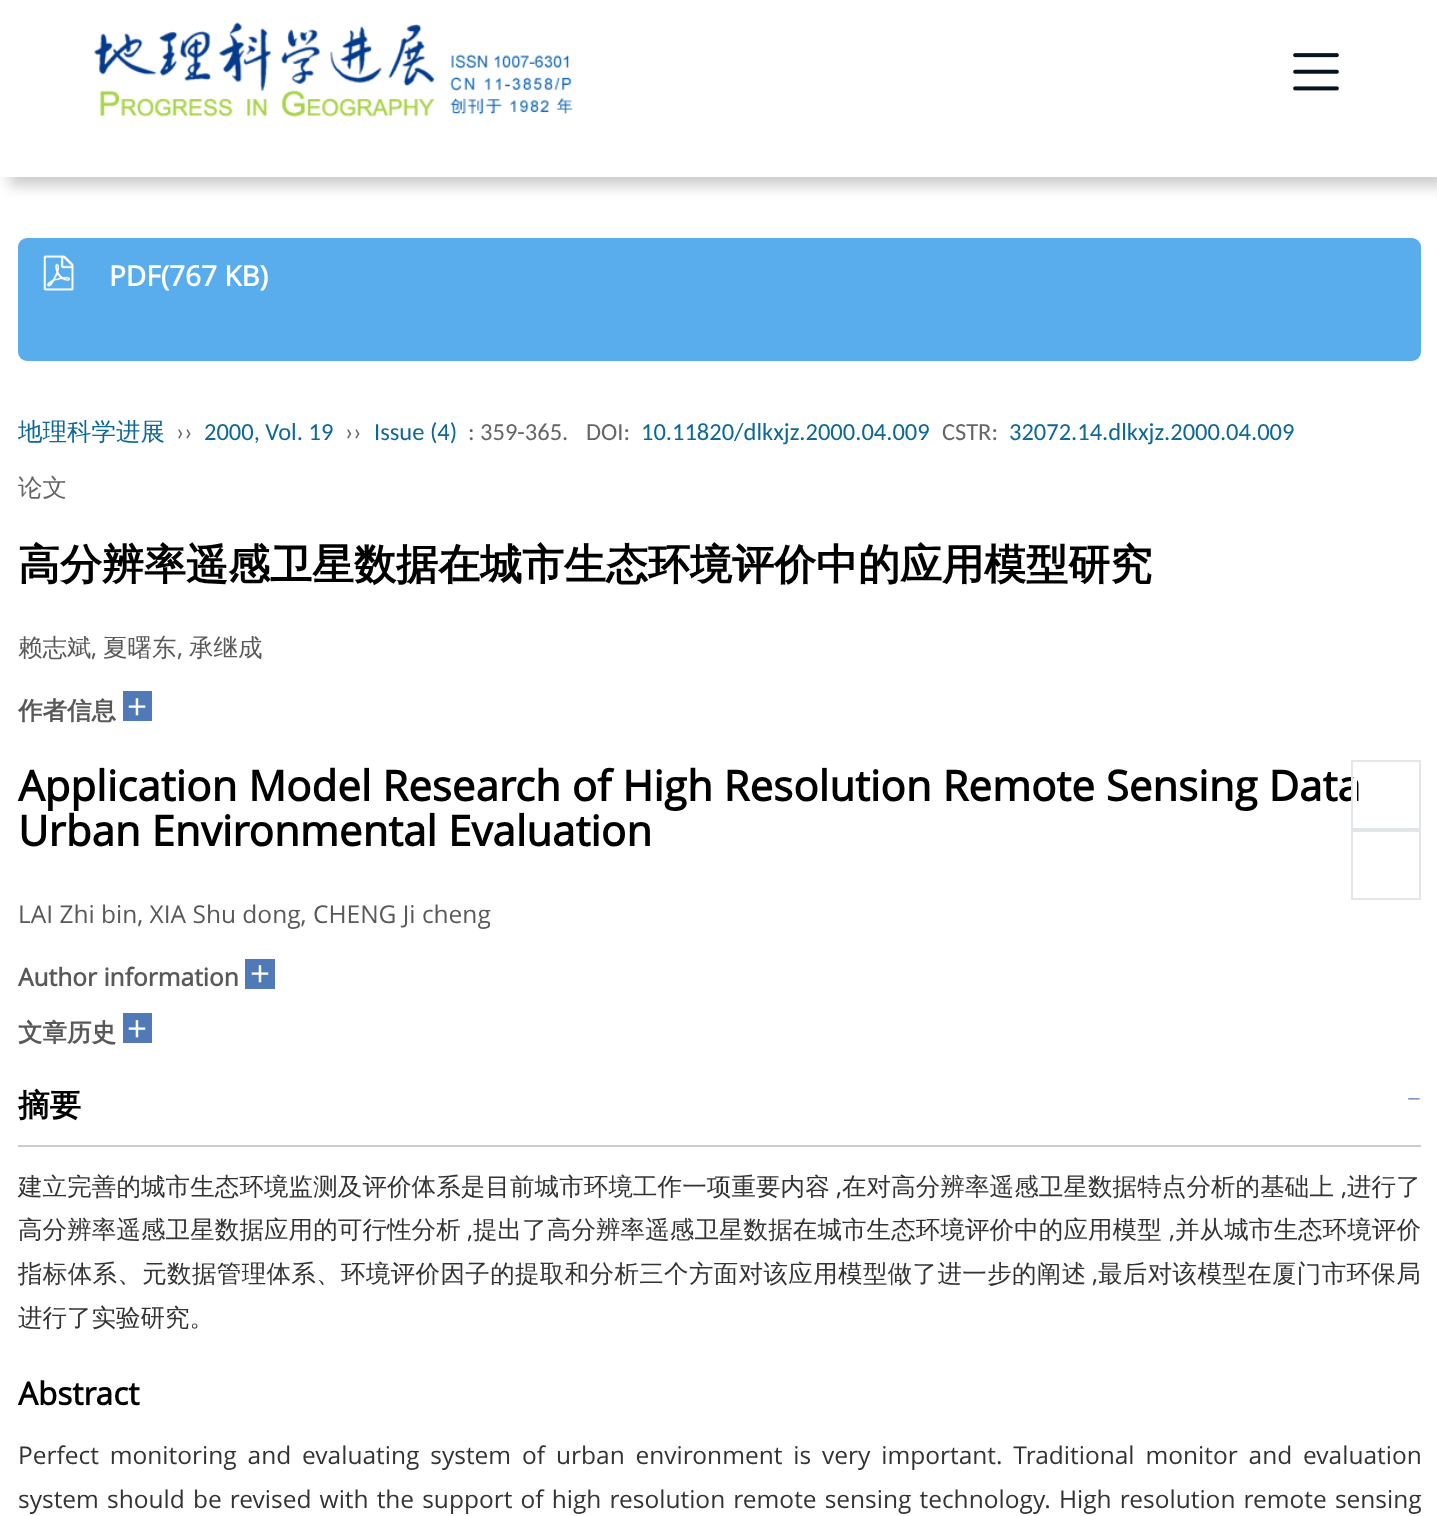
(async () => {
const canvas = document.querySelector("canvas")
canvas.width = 1437
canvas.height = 1516
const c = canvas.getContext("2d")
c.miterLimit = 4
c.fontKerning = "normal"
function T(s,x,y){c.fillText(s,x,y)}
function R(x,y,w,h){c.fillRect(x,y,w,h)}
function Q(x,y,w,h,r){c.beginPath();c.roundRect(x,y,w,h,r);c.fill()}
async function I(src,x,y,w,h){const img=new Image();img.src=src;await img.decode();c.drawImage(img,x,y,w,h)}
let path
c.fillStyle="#fff"
R(0,0,1437,1516)
c.save()
path = new Path2D("M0 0h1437v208h-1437zm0 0h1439v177h-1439z")
c.clip(path,"evenodd")
c.fillStyle="#00000033"
c.filter="blur(7px)"
c.beginPath()
c.rect(9,9,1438,177)
c.fill()
c.filter="none"
c.restore()
await I("1.png",94,22,479,95)
await I("2.png",1293,53,46,38)
c.fillStyle="#5aadec"
Q(18,238,1403,123,9)
await I("3.png",43,255,31,36)
c.font="bold 28px Open Sans"
c.fillStyle="#fff"
T("PDF(767 KB)",109,286)
c.font="500 24.5px WenQuanYi Zen Hei"
c.fillStyle="#0d6797"
T("地理科学进展",18,440)
c.font="24.5px Carlito"
c.fillStyle="#666"
T("››",176,440)
c.fillStyle="#0d6797"
T("2000, Vol. 19",204,440)
c.fillStyle="#666"
T("››",345,440)
c.fillStyle="#0d6797"
T("Issue (4)",374,440)
c.fillStyle="#666"
T(": 359-365.",468,440)
T("DOI:",586,440)
c.fillStyle="#0d6797"
T("10.11820/dlkxjz.2000.04.009",641,440)
c.fillStyle="#666"
T("CSTR:",942,440)
c.fillStyle="#0d6797"
T("32072.14.dlkxjz.2000.04.009",1009,440)
c.font="500 24.5px WenQuanYi Zen Hei"
c.fillStyle="#666"
T("论文",18,496)
c.font="bold 42px WenQuanYi Zen Hei"
c.fillStyle="#000"
T("高分辨率遥感卫星数据在城市生态环境评价中的应用模型研究",18,579)
c.font="500 24.5px WenQuanYi Zen Hei"
c.fillStyle="#595959"
T("赖志斌",18,656)
c.font="24.5px Open Sans"
T(",",91,656)
c.font="500 24.5px WenQuanYi Zen Hei"
T("夏曙东",103,656)
c.font="24.5px Open Sans"
T(",",177,656)
c.font="500 24.5px WenQuanYi Zen Hei"
T("承继成",189,656)
c.font="bold 24.5px WenQuanYi Zen Hei"
T("作者信息",18,719)
c.fillStyle="#5079b7"
R(123,691,29,30)
c.font="35px Open Sans"
c.fillStyle="#fff"
T("+",127,719)
c.font="bold 42px Open Sans"
c.fillStyle="#000"
T("Application Model Research of High Resolution Remote Sensing Data",18,801)
T("Urban Environmental Evaluation",18,846)
c.font="24.5px Open Sans"
c.fillStyle="#595959"
T("LAI Zhi bin, XIA Shu dong, CHENG Ji cheng",18,923)
c.font="bold 24.5px Open Sans"
T("Author information",18,986)
c.fillStyle="#5079b7"
R(245,959,30,30)
c.font="35px Open Sans"
c.fillStyle="#fff"
T("+",250,986)
c.font="bold 24.5px WenQuanYi Zen Hei"
c.fillStyle="#595959"
T("文章历史",18,1041)
c.fillStyle="#5079b7"
R(123,1013,29,30)
c.font="35px Open Sans"
c.fillStyle="#fff"
T("+",127,1041)
c.fillStyle="#ccc"
R(18,1145,1403,2)
c.font="bold 31.5px WenQuanYi Zen Hei"
c.fillStyle="#000"
T("摘要",18,1116)
c.font="24.5px Liberation Serif"
c.fillStyle="#5079b7"
T("−",1407,1107)
c.letterSpacing="0.1px"
c.font="500 24.5px WenQuanYi Zen Hei"
c.fillStyle="#333"
T("建立完善的城市生态环境监测及评价体系是目前城市环境工作一项重要内容",18,1195)
c.font="24.5px Open Sans"
T(",",836,1195)
c.font="500 24.5px WenQuanYi Zen Hei"
T("在对高分辨率遥感卫星数据特点分析的基础上",842,1195)
c.font="24.5px Open Sans"
T(",",1341,1195)
c.font="500 24.5px WenQuanYi Zen Hei"
T("进行了",1347,1195)
T("高分辨率遥感卫星数据应用的可行性分析",18,1238)
c.font="24.5px Open Sans"
T(",",467,1238)
c.font="500 24.5px WenQuanYi Zen Hei"
T("提出了高分辨率遥感卫星数据在城市生态环境评价中的应用模型",473,1238)
c.font="24.5px Open Sans"
T(",",1169,1238)
c.font="500 24.5px WenQuanYi Zen Hei"
T("并从城市生态环境评价",1175,1238)
c.save()
c.beginPath()
c.rect(18,1076,1403,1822)
c.clip()
c.letterSpacing="0.35px"
T("指标体系、元数据管理体系、环境评价因子的提取和分析三个方面对该应用模型做了进一步的阐述",18,1282)
c.restore()
c.letterSpacing="0.35px"
c.font="24.5px Open Sans"
T(",",1092,1282)
c.font="500 24.5px WenQuanYi Zen Hei"
T("最后对该模型在厦门市环保局",1098,1282)
c.letterSpacing="0px"
T("进行了实验研究。",18,1326)
c.font="bold 31.5px Open Sans"
c.fillStyle="#000"
T("Abstract",18,1405)
c.wordSpacing="4.5px"
c.font="24.5px Open Sans"
c.fillStyle="#333"
T("Perfect monitoring and evaluating system of urban environment is very important. Traditional monitor and evaluation",18,1464)
c.wordSpacing="1.75px"
T("system should be revised with the support of high resolution remote sensing technology. High resolution remote sensing",18,1508)
c.fillStyle="#fff"
R(1353,778,4,23)
c.strokeStyle="#e2e6e8"
c.lineWidth=2
c.strokeRect(1352,761,68,68)
c.strokeRect(1352,831,68,68)
})()
